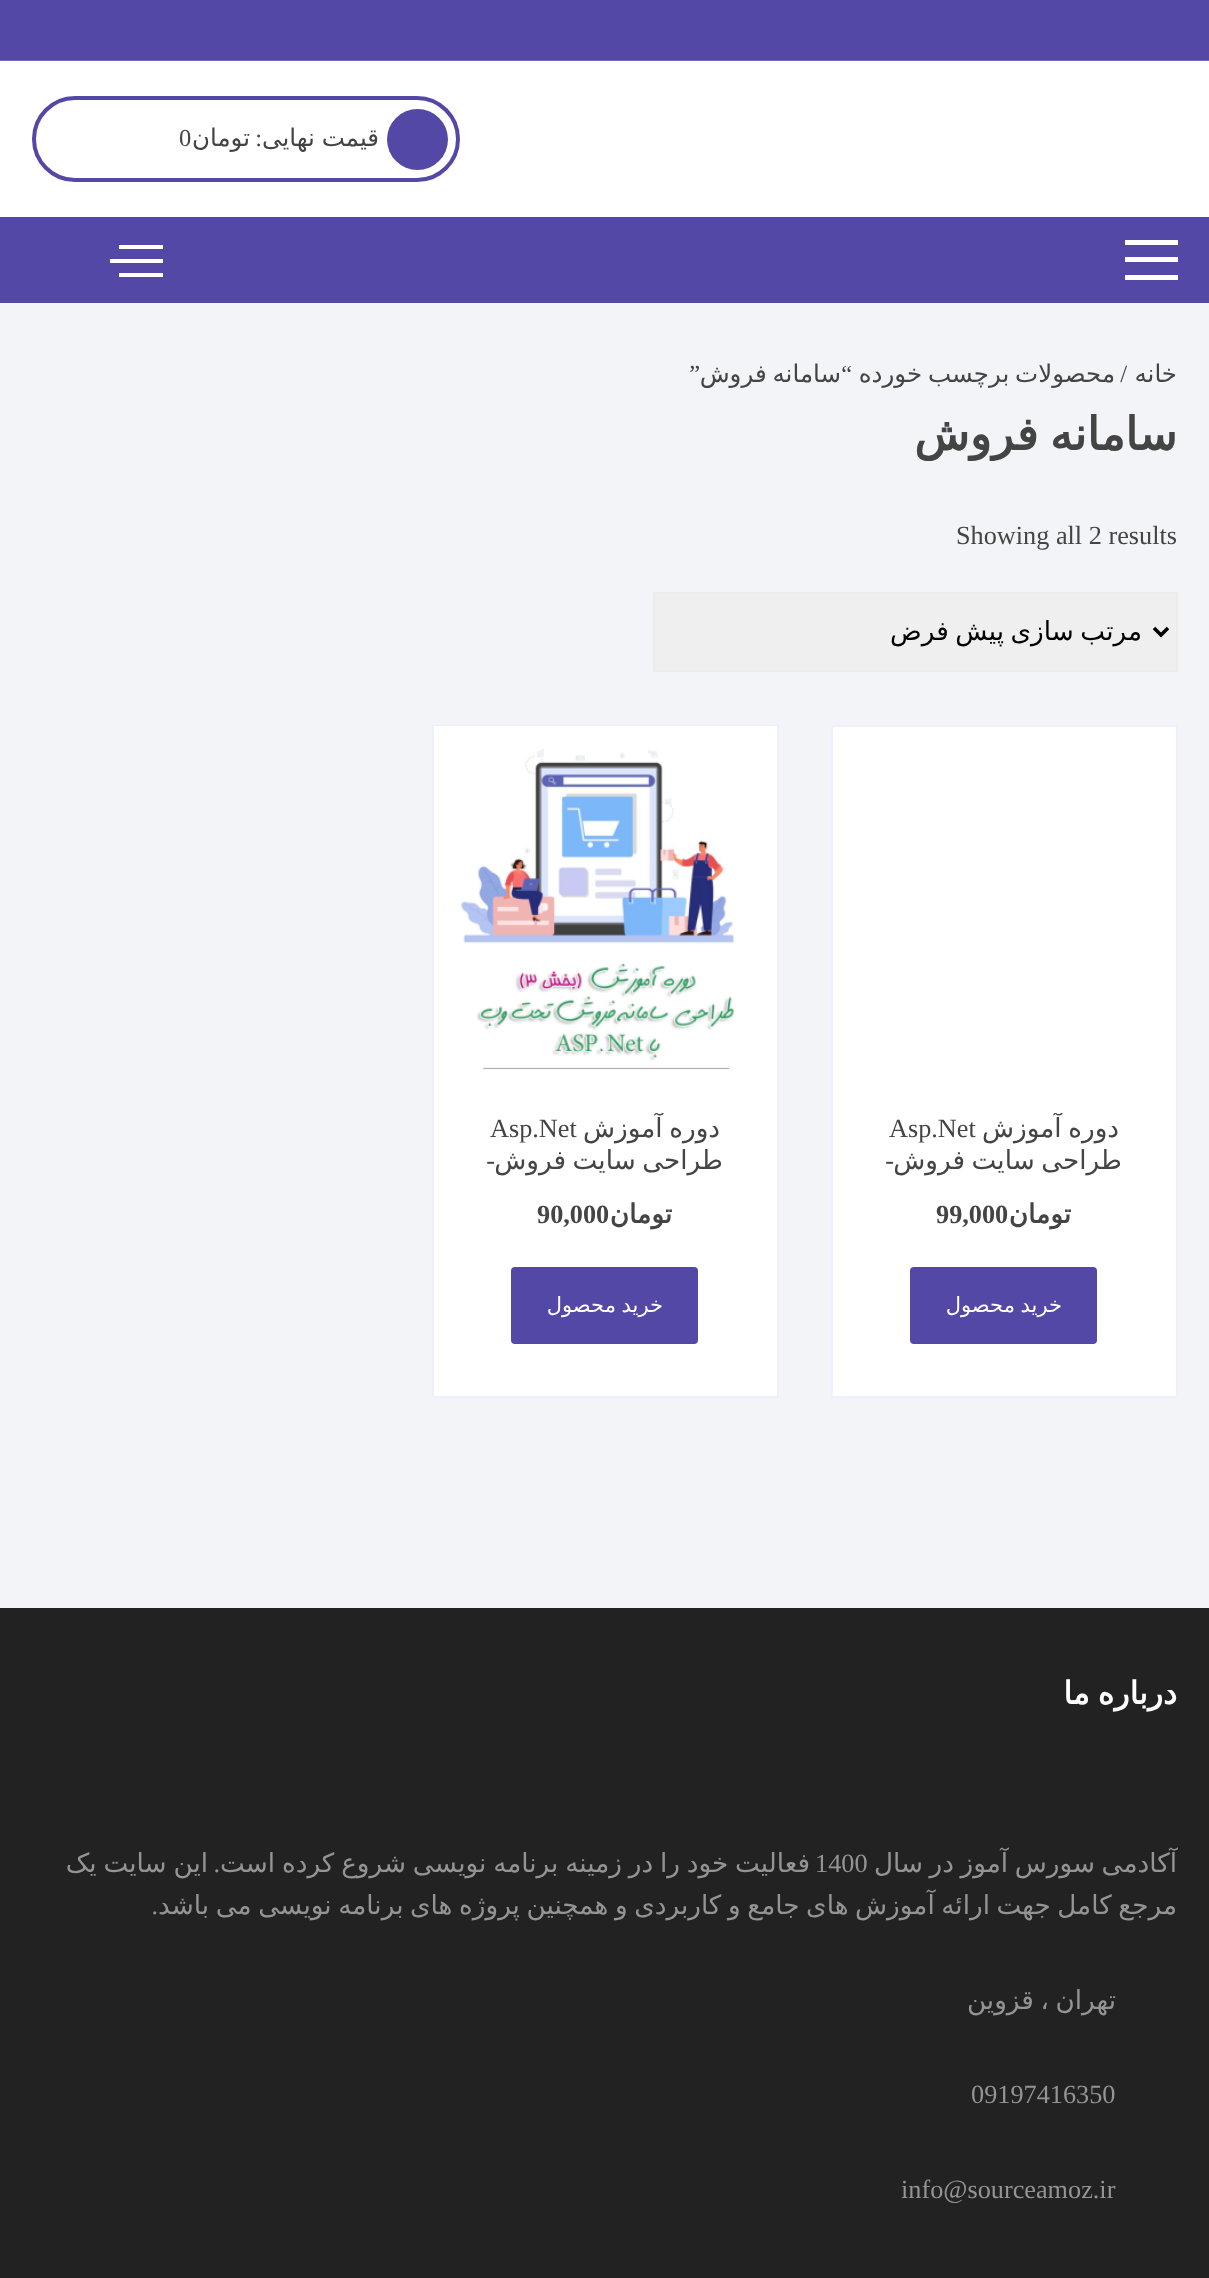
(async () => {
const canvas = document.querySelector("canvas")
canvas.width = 1209
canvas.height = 2278
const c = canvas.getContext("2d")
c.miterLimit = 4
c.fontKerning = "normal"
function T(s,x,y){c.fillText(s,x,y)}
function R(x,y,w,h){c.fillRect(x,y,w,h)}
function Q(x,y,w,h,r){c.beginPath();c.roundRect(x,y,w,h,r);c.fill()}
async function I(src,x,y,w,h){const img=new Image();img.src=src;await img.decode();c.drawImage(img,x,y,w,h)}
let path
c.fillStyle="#f3f4f8"
R(0,0,1209,2278)
c.fillStyle="#fff"
R(0,61,1209,156)
c.fillStyle="#5348a5"
R(0,0,1209,60)
c.fillStyle="#756db7"
R(0,60,1209,1)
c.beginPath()
c.roundRect(34,98,424,82,41)
c.strokeStyle="#5348a5"
c.lineWidth=4
c.stroke()
c.fillStyle="#5348a5"
c.beginPath()
c.arc(417.5,139.5,30.5,0,7)
c.fill()
c.wordSpacing="-1px"
c.direction="rtl"
c.font="24.5px DejaVu Sans"
c.fillStyle="#444"
T("قیمت نهایی",379,146)
c.wordSpacing="0px"
c.font="24.5px Liberation Serif"
T(":",262,146)
c.font="24.5px DejaVu Sans"
T("تومان",250,146)
c.direction="ltr"
c.font="24.5px Liberation Serif"
T("0",179,146)
c.fillStyle="#5348a5"
R(0,217,1209,86)
c.fillStyle="#fff"
R(1125,240,53,5)
R(1125,257,53,5)
R(1125,275,53,5)
R(119,245,44,4)
R(110,259,53,4)
R(119,273,44,4)
c.direction="rtl"
c.font="24.5px DejaVu Sans"
c.fillStyle="#444"
T("خانه",1177,382)
c.font="24.5px Liberation Serif"
T("/",1127,382)
c.wordSpacing="-2px"
c.font="24.5px DejaVu Sans"
T("محصولات برچسب خورده",1115,382)
c.wordSpacing="0px"
c.font="24.5px Liberation Serif"
T("“",852,382)
c.wordSpacing="-2px"
c.font="24.5px DejaVu Sans"
T("سامانه فروش",841,382)
c.wordSpacing="0px"
c.font="24.5px Liberation Serif"
T("”",700,382)
c.wordSpacing="-3px"
c.font="bold 45.5px DejaVu Sans"
T("سامانه فروش",1177,450)
c.wordSpacing="0px"
c.direction="ltr"
c.font="26.25px Liberation Serif"
T("Showing all 2 results",956,544)
c.fillStyle="#efefef"
c.beginPath()
c.rect(654,593,523,78)
c.fill()
c.strokeStyle="#ececec"
c.lineWidth=2
c.stroke()
path = new Path2D("M1154 628l7 7l7-7")
c.strokeStyle="#000"
c.lineWidth=3.5
c.stroke(path)
c.save()
c.beginPath()
c.rect(709,616,434,32)
c.clip()
c.wordSpacing="-1.75px"
c.direction="rtl"
c.font="26.25px DejaVu Sans"
c.fillStyle="#000"
T("مرتب سازی پیش فرض",1142,640)
c.restore()
c.fillStyle="#fff"
c.beginPath()
c.rect(832,726,345,671)
c.fill()
c.strokeStyle="#eef1fd"
c.lineWidth=2
c.stroke()
c.save()
c.beginPath()
c.rect(868,1113,273,63)
c.clip()
c.wordSpacing="-1.75px"
c.direction="rtl"
c.font="26.25px DejaVu Sans"
c.fillStyle="#444"
T("دوره آموزش",1119,1137)
c.restore()
c.fillStyle="#444"
T("Asp.Net",889,1137)
c.wordSpacing="-1.75px"
c.direction="rtl"
c.font="26.25px DejaVu Sans"
T("طراحی سایت فروش",1122,1169)
c.wordSpacing="0px"
c.font="26.25px Liberation Serif"
T("-",894,1169)
c.font="bold 26.25px DejaVu Sans"
T("تومان",1071,1223)
c.direction="ltr"
c.font="bold 26.25px Liberation Serif"
T("99,000",936,1223)
c.fillStyle="#5348a5"
Q(910,1267,187,77,4)
c.wordSpacing="-1px"
c.direction="rtl"
c.font="21px DejaVu Sans"
c.fillStyle="#fff"
T("خرید محصول",1062,1312)
R(434,1069,343,327)
c.strokeRect(433,726,345,671)
R(434,726,343,343)
await I("1.png",459,749,276,321)
c.save()
c.beginPath()
c.rect(469,1113,273,63)
c.clip()
c.wordSpacing="-1.75px"
c.font="26.25px DejaVu Sans"
c.fillStyle="#444"
T("دوره آموزش",720,1137)
c.restore()
c.wordSpacing="0px"
c.direction="ltr"
c.font="26.25px Liberation Serif"
c.fillStyle="#444"
T("Asp.Net",490,1137)
c.wordSpacing="-1.75px"
c.direction="rtl"
c.font="26.25px DejaVu Sans"
T("طراحی سایت فروش",723,1169)
c.wordSpacing="0px"
c.font="26.25px Liberation Serif"
T("-",495,1169)
c.font="bold 26.25px DejaVu Sans"
T("تومان",672,1223)
c.direction="ltr"
c.font="bold 26.25px Liberation Serif"
T("90,000",537,1223)
c.fillStyle="#5348a5"
Q(511,1267,187,77,4)
c.wordSpacing="-1px"
c.direction="rtl"
c.font="21px DejaVu Sans"
c.fillStyle="#fff"
T("خرید محصول",663,1312)
c.fillStyle="#222"
R(0,1608,1209,670)
c.wordSpacing="-2px"
c.font="bold 31.5px DejaVu Sans"
c.fillStyle="#fff"
T("درباره ما",1177,1704)
c.wordSpacing="-1.75px"
c.font="26.25px DejaVu Sans"
c.fillStyle="#949494"
T("آکادمی سورس آموز در سال",1177,1872)
c.wordSpacing="-1.5px"
T("فعالیت خود را در زمینه برنامه نویسی شروع کرده است",810,1872)
c.wordSpacing="0px"
c.direction="ltr"
c.font="26.25px Liberation Serif"
T("1400",815,1872)
c.direction="rtl"
T(".",220,1872)
c.wordSpacing="-1.5px"
c.font="26.25px DejaVu Sans"
T("این سایت یک",208,1872)
c.wordSpacing="-1.75px"
T("مرجع کامل جهت ارائه آموزش های جامع و کاربردی و همچنین پروژه های برنامه نویسی می باشد",1177,1914)
c.wordSpacing="0px"
c.font="26.25px Liberation Serif"
T(".",158,1914)
c.wordSpacing="-1.75px"
c.font="26.25px DejaVu Sans"
T("تهران ، قزوین",1116,2009)
c.wordSpacing="0px"
c.direction="ltr"
c.font="26.25px Liberation Serif"
T("09197416350",971,2103)
T("info@sourceamoz.ir",901,2198)
})()
